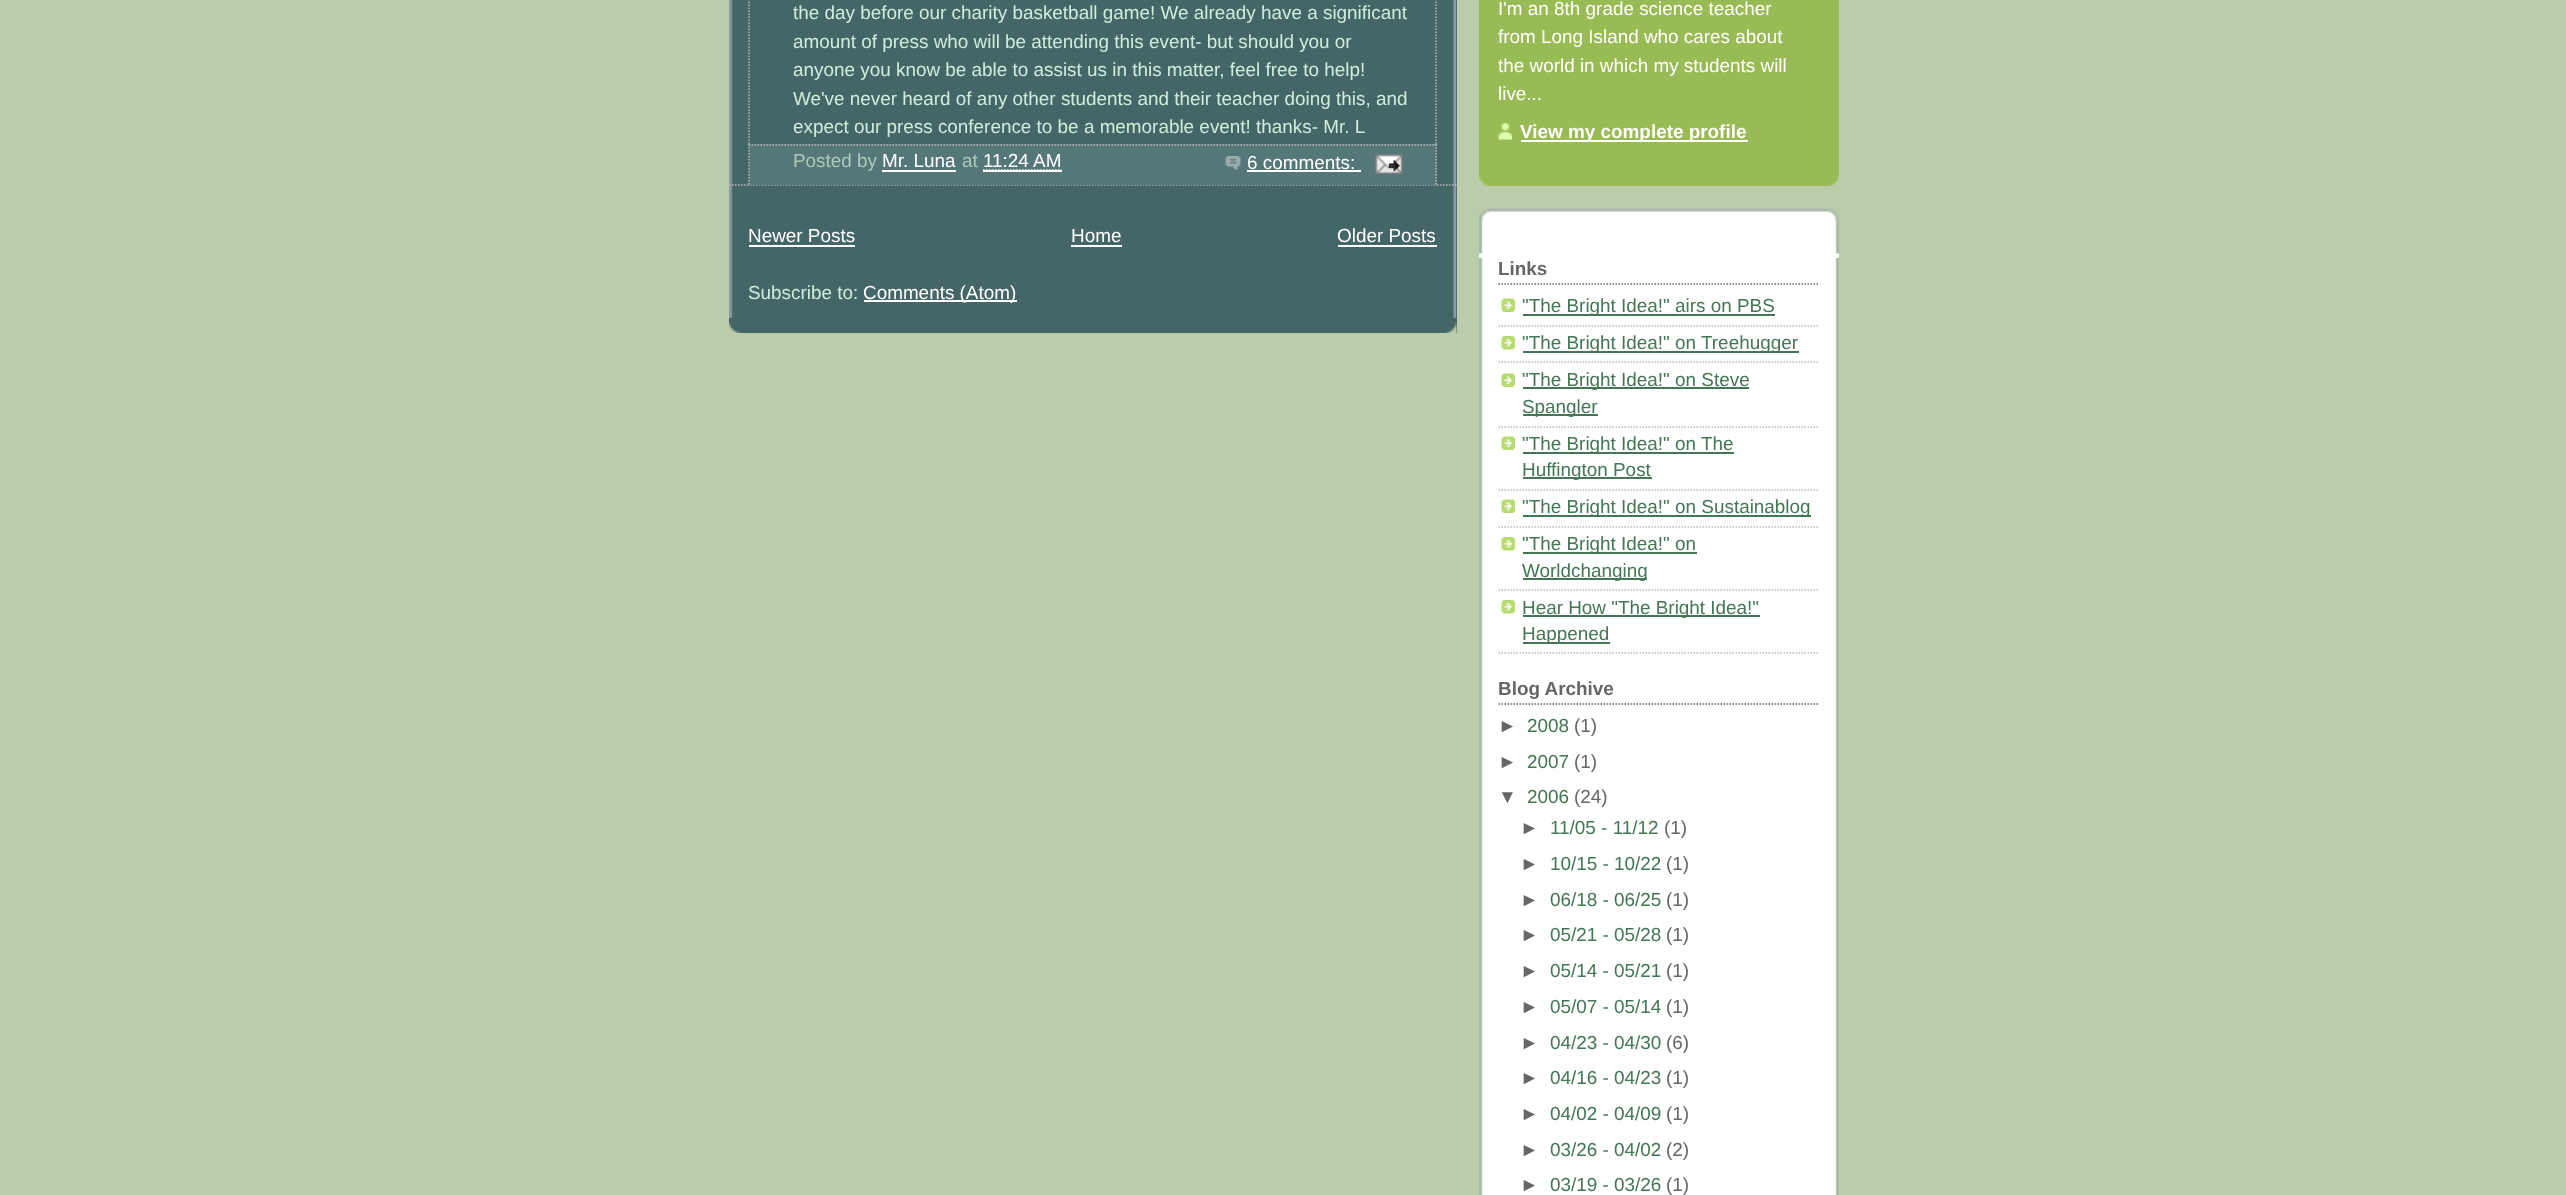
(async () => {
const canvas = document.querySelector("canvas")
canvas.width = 2566
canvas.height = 1195
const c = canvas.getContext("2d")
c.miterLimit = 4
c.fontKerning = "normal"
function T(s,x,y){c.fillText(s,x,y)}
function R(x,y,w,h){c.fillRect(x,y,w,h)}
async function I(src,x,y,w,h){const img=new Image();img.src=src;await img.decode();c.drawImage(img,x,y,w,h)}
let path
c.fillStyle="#bca"
R(0,0,2566,1195)
c.fillStyle="#466"
R(729,0,728,333)
await I("1.png",729,321,728,12)
await I("2.png",729,0,728,318)
path = new Path2D("M729 185h727.5")
c.strokeStyle="#bbb"
c.lineWidth=1.5
c.setLineDash([1.5,1.5])
c.stroke(path)
path = new Path2D("M1436-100.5v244.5")
c.stroke(path)
path = new Path2D("M749-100.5v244.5")
c.stroke(path)
c.font="18.9px Liberation Sans"
c.fillStyle="#ced"
T("the day before our charity basketball game! We already have a significant",793,19)
T("amount of press who will be attending this event- but should you or",793,48)
T("anyone you know be able to assist us in this matter, feel free to help!",793,76)
T("We've never heard of any other students and their teacher doing this, and",793,105)
T("expect our press conference to be a memorable event! thanks- Mr. L",793,133)
c.fillStyle="#577"
R(749,144,688,41)
path = new Path2D("M748.5 145h688.5")
c.stroke(path)
path = new Path2D("M1436 144v40.5")
c.stroke(path)
path = new Path2D("M749 144v40.5")
c.stroke(path)
c.fillStyle="#acb"
T("Posted by",793,167)
c.fillStyle="#fff"
T("Mr. Luna",882,167)
R(882,170,74,2)
c.fillStyle="#acb"
T("at",962,167)
c.fillStyle="#fff"
T("11:24 AM",983,167)
path = new Path2D("M983 170h78.5")
c.strokeStyle="#fff"
c.stroke(path)
R(983,170,79,2)
await I("3.png",1225,156,16,14)
T("6 comments:",1247,169)
R(1247,170,114,2)
await I("4.png",1375,154,28,20)
T("Newer Posts",748,242)
R(749,245,106,2)
T("Home",1071,242)
R(1071,245,51,2)
T("Older Posts",1337,242)
R(1338,245,99,2)
c.fillStyle="#ced"
T("Subscribe to:",748,299)
c.fillStyle="#fff"
R(864,300,153,2)
T("Comments (Atom)",863,299)
c.fillStyle="#9b5"
R(1479,0,360,186)
await I("5.png",1479,174,360,12)
c.fillStyle="#fff"
T("I'm an 8th grade science teacher",1498,15)
T("from Long Island who cares about",1498,43)
T("the world in which my students will",1498,72)
T("live...",1498,100)
await I("6.png",1498,123,14,17)
R(1521,140,227,2)
c.font="bold 18.9px Liberation Sans"
T("View my complete profile",1520,138)
R(1479,211,360,984)
await I("7.png",1479,208,360,46)
await I("8.png",1479,258,360,937)
path = new Path2D("M1498.5 284h321")
c.strokeStyle="#666"
c.stroke(path)
c.fillStyle="#666"
T("Links",1498,275)
await I("9.png",1501,298,14,14)
path = new Path2D("M1498.5 326h321")
c.strokeStyle="#bbb"
c.stroke(path)
c.fillStyle="#475"
R(1523,314,252,2)
c.font="18.9px Liberation Sans"
T("\"The Bright Idea!\" airs on PBS",1522,312)
await I("10.png",1501,336,14,14)
path = new Path2D("M1498.5 362h321")
c.stroke(path)
R(1523,351,276,2)
T("\"The Bright Idea!\" on Treehugger",1522,349)
await I("9.png",1501,373,14,14)
path = new Path2D("M1498.5 427h321")
c.stroke(path)
R(1523,387,226,2)
T("\"The Bright Idea!\" on Steve",1522,386)
R(1523,414,75,2)
T("Spangler",1522,413)
await I("9.png",1501,436,14,14)
path = new Path2D("M1498.5 490h321")
c.stroke(path)
R(1523,452,211,2)
T("\"The Bright Idea!\" on The",1522,450)
R(1523,477,129,2)
T("Huffington Post",1522,476)
await I("9.png",1501,499,14,14)
path = new Path2D("M1498.5 527h321")
c.stroke(path)
R(1523,515,288,2)
T("\"The Bright Idea!\" on Sustainablog",1522,513)
await I("10.png",1501,537,14,14)
path = new Path2D("M1498.5 590h321")
c.stroke(path)
R(1523,552,174,2)
T("\"The Bright Idea!\" on",1522,550)
R(1523,578,124,2)
T("Worldchanging",1522,577)
await I("10.png",1501,600,14,14)
path = new Path2D("M1498.5 653h321")
c.stroke(path)
R(1523,615,237,2)
T("Hear How \"The Bright Idea!\"",1522,614)
R(1523,642,87,2)
T("Happened",1522,640)
path = new Path2D("M1498.5 704h321")
c.strokeStyle="#666"
c.stroke(path)
c.font="bold 18.9px Liberation Sans"
c.fillStyle="#666"
T("Blog Archive",1498,695)
c.font="18.9px Liberation Sans"
T("►",1498,732)
c.fillStyle="#475"
T("2008",1527,732)
c.fillStyle="#666"
T("(1)",1574,732)
T("►",1498,768)
c.fillStyle="#475"
T("2007",1527,768)
c.fillStyle="#666"
T("(1)",1574,768)
T("▼",1498,803)
c.fillStyle="#475"
T("2006",1527,803)
c.fillStyle="#666"
T("(24)",1574,803)
T("►",1520,834)
c.fillStyle="#475"
T("11/05 - 11/12",1550,834)
c.fillStyle="#666"
T("(1)",1664,834)
T("►",1520,870)
c.fillStyle="#475"
T("10/15 - 10/22",1550,870)
c.fillStyle="#666"
T("(1)",1666,870)
T("►",1520,906)
c.fillStyle="#475"
T("06/18 - 06/25",1550,906)
c.fillStyle="#666"
T("(1)",1666,906)
T("►",1520,941)
c.fillStyle="#475"
T("05/21 - 05/28",1550,941)
c.fillStyle="#666"
T("(1)",1666,941)
T("►",1520,977)
c.fillStyle="#475"
T("05/14 - 05/21",1550,977)
c.fillStyle="#666"
T("(1)",1666,977)
T("►",1520,1013)
c.fillStyle="#475"
T("05/07 - 05/14",1550,1013)
c.fillStyle="#666"
T("(1)",1666,1013)
T("►",1520,1049)
c.fillStyle="#475"
T("04/23 - 04/30",1550,1049)
c.fillStyle="#666"
T("(6)",1666,1049)
T("►",1520,1084)
c.fillStyle="#475"
T("04/16 - 04/23",1550,1084)
c.fillStyle="#666"
T("(1)",1666,1084)
T("►",1520,1120)
c.fillStyle="#475"
T("04/02 - 04/09",1550,1120)
c.fillStyle="#666"
T("(1)",1666,1120)
T("►",1520,1156)
c.fillStyle="#475"
T("03/26 - 04/02",1550,1156)
c.fillStyle="#666"
T("(2)",1666,1156)
T("►",1520,1191)
c.fillStyle="#475"
T("03/19 - 03/26",1550,1191)
c.fillStyle="#666"
T("(1)",1666,1191)
})()
